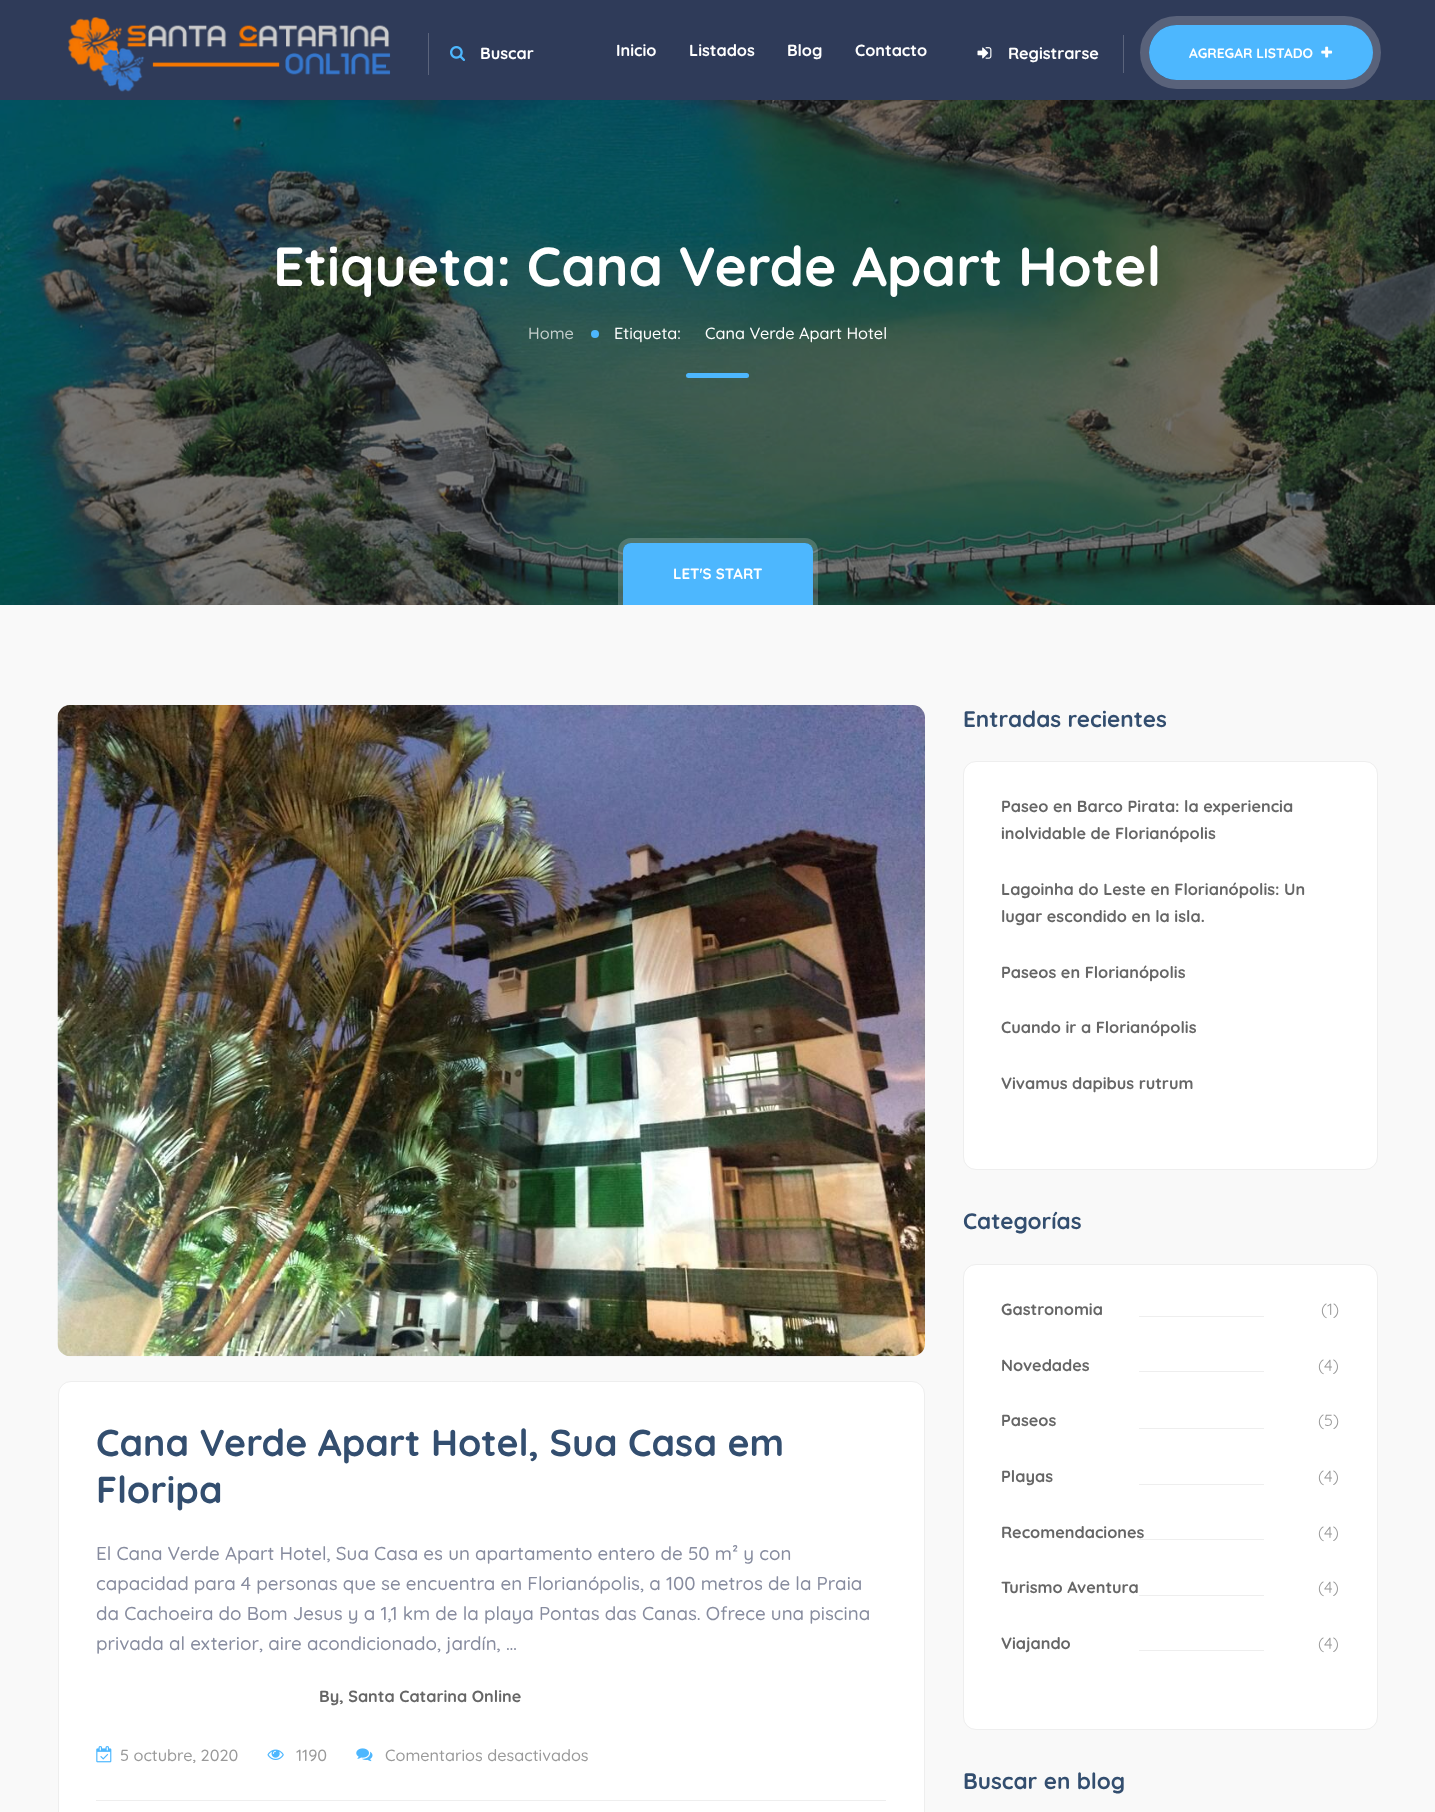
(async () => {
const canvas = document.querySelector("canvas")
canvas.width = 1435
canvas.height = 1812
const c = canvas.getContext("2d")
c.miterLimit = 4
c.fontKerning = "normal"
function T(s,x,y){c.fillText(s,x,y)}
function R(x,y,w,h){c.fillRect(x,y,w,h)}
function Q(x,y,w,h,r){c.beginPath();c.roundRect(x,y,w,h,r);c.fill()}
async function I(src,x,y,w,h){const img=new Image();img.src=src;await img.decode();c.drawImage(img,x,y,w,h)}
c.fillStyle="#2f3b59"
R(0,0,1435,1812)
await I("1.png",68,17,323,75)
c.fillStyle="#5b647c"
R(428,33,1,42)
await I("2.png",450,46,16,15)
c.font="bold 16.25px Quicksand"
c.fillStyle="#fff"
T("Buscar",480,59)
T("Inicio",616,56)
T("Listados",689,56)
T("Blog",787,56)
T("Contacto",855,56)
await I("3.png",977,47,15,12)
T("Registrarse",1008,59)
c.fillStyle="#5b647c"
R(1123,35,1,38)
c.beginPath()
c.roundRect(1144.5,20.5,232,64,32)
c.strokeStyle="#59627a"
c.lineWidth=9
c.stroke()
c.fillStyle="#4db7fe"
Q(1149,25,224,55,27.5)
c.font="bold 13.75px Quicksand"
c.fillStyle="#fff"
T("AGREGAR LISTADO",1189,58)
await I("4.png",1321,46,12,12)
await I("5.png",0,100,1435,505)
c.font="bold 55px Quicksand"
T("Etiqueta: Cana Verde Apart Hotel",273,286)
c.font="500 16.25px Quicksand"
c.fillStyle="#c3cecc"
T("Home",528,339)
c.fillStyle="#4db7fe"
c.beginPath()
c.arc(595,334,4,0,7)
c.fill()
c.fillStyle="#fff"
T("Etiqueta:",614,339)
T("Cana Verde Apart Hotel",705,339)
c.fillStyle="#4db7fe"
Q(686,373,63,5,2.5)
c.beginPath()
c.roundRect(620.5,540.5,195,67,[10.5,10.5,0,0])
c.strokeStyle="#ffffff33"
c.lineWidth=5
c.stroke()
c.beginPath()
c.roundRect(623,543,190,62,[8,8,0,0])
c.fill()
c.font="bold 15px Quicksand"
c.fillStyle="#fff"
T("LET'S START",673,579)
c.fillStyle="#f9f9f9"
R(0,605,1435,1207)
await I("6.png",57,705,868,652)
c.fillStyle="#fff"
c.beginPath()
c.roundRect(58.5,1381.5,866,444,12.5)
c.fill()
c.strokeStyle="#eee"
c.lineWidth=1
c.stroke()
c.font="bold 37.5px Quicksand"
c.fillStyle="#334e6f"
T("Cana Verde Apart Hotel, Sua Casa em",96,1456)
T("Floripa",96,1503)
c.font="500 18.75px Quicksand"
c.fillStyle="#878c9f"
T("El Cana Verde Apart Hotel, Sua Casa es un apartamento entero de 50 m² y con",96,1560)
T("capacidad para 4 personas que se encuentra en Florianópolis, a 100 metros de la Praia",96,1590)
T("da Cachoeira do Bom Jesus y a 1,1 km de la playa Pontas das Canas. Ofrece una piscina",96,1620)
T("privada al exterior, aire acondicionado, jardín, …",96,1650)
c.font="bold 16.25px Quicksand"
c.fillStyle="#666"
T("By, Santa Catarina Online",319,1702)
await I("7.png",96,1746,16,17)
c.font="500 16.25px Quicksand"
c.fillStyle="#999"
T("5 octubre, 2020",120,1761)
await I("8.png",267,1749,17,11)
T("1190",296,1761)
await I("9.png",356,1748,17,14)
T("Comentarios desactivados",385,1761)
c.fillStyle="#eee"
R(96,1800,790,1)
c.font="bold 22.5px Quicksand"
c.fillStyle="#334e6f"
T("Entradas recientes",963,727)
c.fillStyle="#fff"
c.beginPath()
c.roundRect(963.5,761.5,414,408,12.5)
c.fill()
c.stroke()
c.font="bold 16.25px Quicksand"
c.fillStyle="#666"
T("Paseo en Barco Pirata: la experiencia",1001,812)
T("inolvidable de Florianópolis",1001,839)
T("Lagoinha do Leste en Florianópolis: Un",1001,895)
T("lugar escondido en la isla.",1001,922)
T("Paseos en Florianópolis",1001,978)
T("Cuando ir a Florianópolis",1001,1033)
T("Vivamus dapibus rutrum",1001,1089)
c.font="bold 22.5px Quicksand"
c.fillStyle="#334e6f"
T("Categorías",963,1229)
c.fillStyle="#fff"
c.beginPath()
c.roundRect(963.5,1264.5,414,465,12.5)
c.fill()
c.stroke()
c.font="bold 16.25px Quicksand"
c.fillStyle="#666"
T("Gastronomia",1001,1315)
c.fillStyle="#eee"
R(1139,1316,125,1)
c.font="16.25px Quicksand"
c.fillStyle="#999"
T("(1)",1321,1315)
c.font="bold 16.25px Quicksand"
c.fillStyle="#666"
T("Novedades",1001,1371)
c.fillStyle="#eee"
R(1139,1371,125,1)
c.font="16.25px Quicksand"
c.fillStyle="#999"
T("(4)",1318,1371)
c.font="bold 16.25px Quicksand"
c.fillStyle="#666"
T("Paseos",1001,1426)
c.fillStyle="#eee"
R(1139,1428,125,1)
c.font="16.25px Quicksand"
c.fillStyle="#999"
T("(5)",1318,1426)
c.font="bold 16.25px Quicksand"
c.fillStyle="#666"
T("Playas",1001,1482)
c.fillStyle="#eee"
R(1139,1484,125,1)
c.font="16.25px Quicksand"
c.fillStyle="#999"
T("(4)",1318,1482)
c.font="bold 16.25px Quicksand"
c.fillStyle="#666"
T("Recomendaciones",1001,1538)
c.fillStyle="#eee"
R(1139,1539,125,1)
c.font="16.25px Quicksand"
c.fillStyle="#999"
T("(4)",1318,1538)
c.font="bold 16.25px Quicksand"
c.fillStyle="#666"
T("Turismo Aventura",1001,1593)
c.fillStyle="#eee"
R(1139,1595,125,1)
c.font="16.25px Quicksand"
c.fillStyle="#999"
T("(4)",1318,1593)
c.font="bold 16.25px Quicksand"
c.fillStyle="#666"
T("Viajando",1001,1649)
c.fillStyle="#eee"
R(1139,1650,125,1)
c.font="16.25px Quicksand"
c.fillStyle="#999"
T("(4)",1318,1649)
c.font="bold 22.5px Quicksand"
c.fillStyle="#334e6f"
T("Buscar en blog",963,1789)
})()
